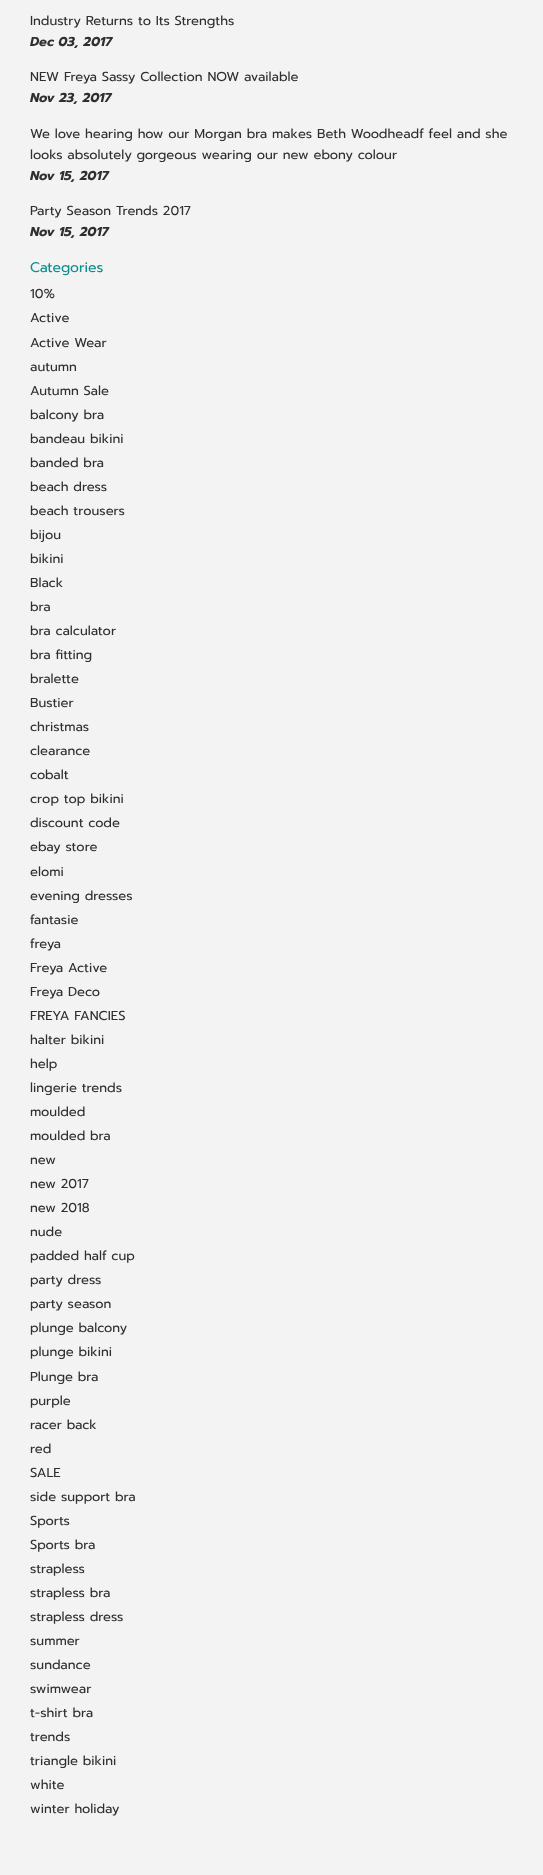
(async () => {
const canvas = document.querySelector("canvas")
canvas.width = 543
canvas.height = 1875
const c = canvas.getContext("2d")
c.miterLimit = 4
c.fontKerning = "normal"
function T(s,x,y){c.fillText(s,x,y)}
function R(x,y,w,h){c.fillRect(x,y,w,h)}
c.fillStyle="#f3f3f3"
R(0,0,543,1875)
c.font="13px Prompt"
c.fillStyle="#2f2f2f"
T("Industry Returns to Its Strengths",30,25)
c.font="italic bold 13px Prompt"
T("Dec 03, 2017",30,46)
c.font="13px Prompt"
T("NEW Freya Sassy Collection NOW available",30,81)
c.font="italic bold 13px Prompt"
T("Nov 23, 2017",30,102)
c.font="13px Prompt"
T("We love hearing how our Morgan bra makes Beth Woodheadf feel and she",30,138)
T("looks absolutely gorgeous wearing our new ebony colour",30,159)
c.font="italic bold 13px Prompt"
T("Nov 15, 2017",30,180)
c.font="13px Prompt"
T("Party Season Trends 2017",30,215)
c.font="italic bold 13px Prompt"
T("Nov 15, 2017",30,236)
c.font="14px Prompt"
c.fillStyle="#0e8d8d"
T("Categories",30,272)
c.font="13px Prompt"
c.fillStyle="#2f2f2f"
T("10%",30,298)
T("Active",30,322)
T("Active Wear",30,347)
T("autumn",30,371)
T("Autumn Sale",30,395)
T("balcony bra",30,419)
T("bandeau bikini",30,443)
T("banded bra",30,467)
T("beach dress",30,491)
T("beach trousers",30,515)
T("bijou",30,539)
T("bikini",30,563)
T("Black",30,587)
T("bra",30,611)
T("bra calculator",30,635)
T("bra fitting",30,659)
T("bralette",30,683)
T("Bustier",30,707)
T("christmas",30,731)
T("clearance",30,755)
T("cobalt",30,779)
T("crop top bikini",30,803)
T("discount code",30,827)
T("ebay store",30,851)
T("elomi",30,876)
T("evening dresses",30,900)
T("fantasie",30,924)
T("freya",30,948)
T("Freya Active",30,972)
T("Freya Deco",30,996)
T("FREYA FANCIES",30,1020)
T("halter bikini",30,1044)
T("help",30,1068)
T("lingerie trends",30,1092)
T("moulded",30,1116)
T("moulded bra",30,1140)
T("new",30,1164)
T("new 2017",30,1188)
T("new 2018",30,1212)
T("nude",30,1236)
T("padded half cup",30,1260)
T("party dress",30,1284)
T("party season",30,1308)
T("plunge balcony",30,1332)
T("plunge bikini",30,1356)
T("Plunge bra",30,1381)
T("purple",30,1405)
T("racer back",30,1429)
T("red",30,1453)
T("SALE",30,1477)
T("side support bra",30,1501)
T("Sports",30,1525)
T("Sports bra",30,1549)
T("strapless",30,1573)
T("strapless bra",30,1597)
T("strapless dress",30,1621)
T("summer",30,1645)
T("sundance",30,1669)
T("swimwear",30,1693)
T("t-shirt bra",30,1717)
T("trends",30,1741)
T("triangle bikini",30,1765)
T("white",30,1789)
T("winter holiday",30,1813)
})()
